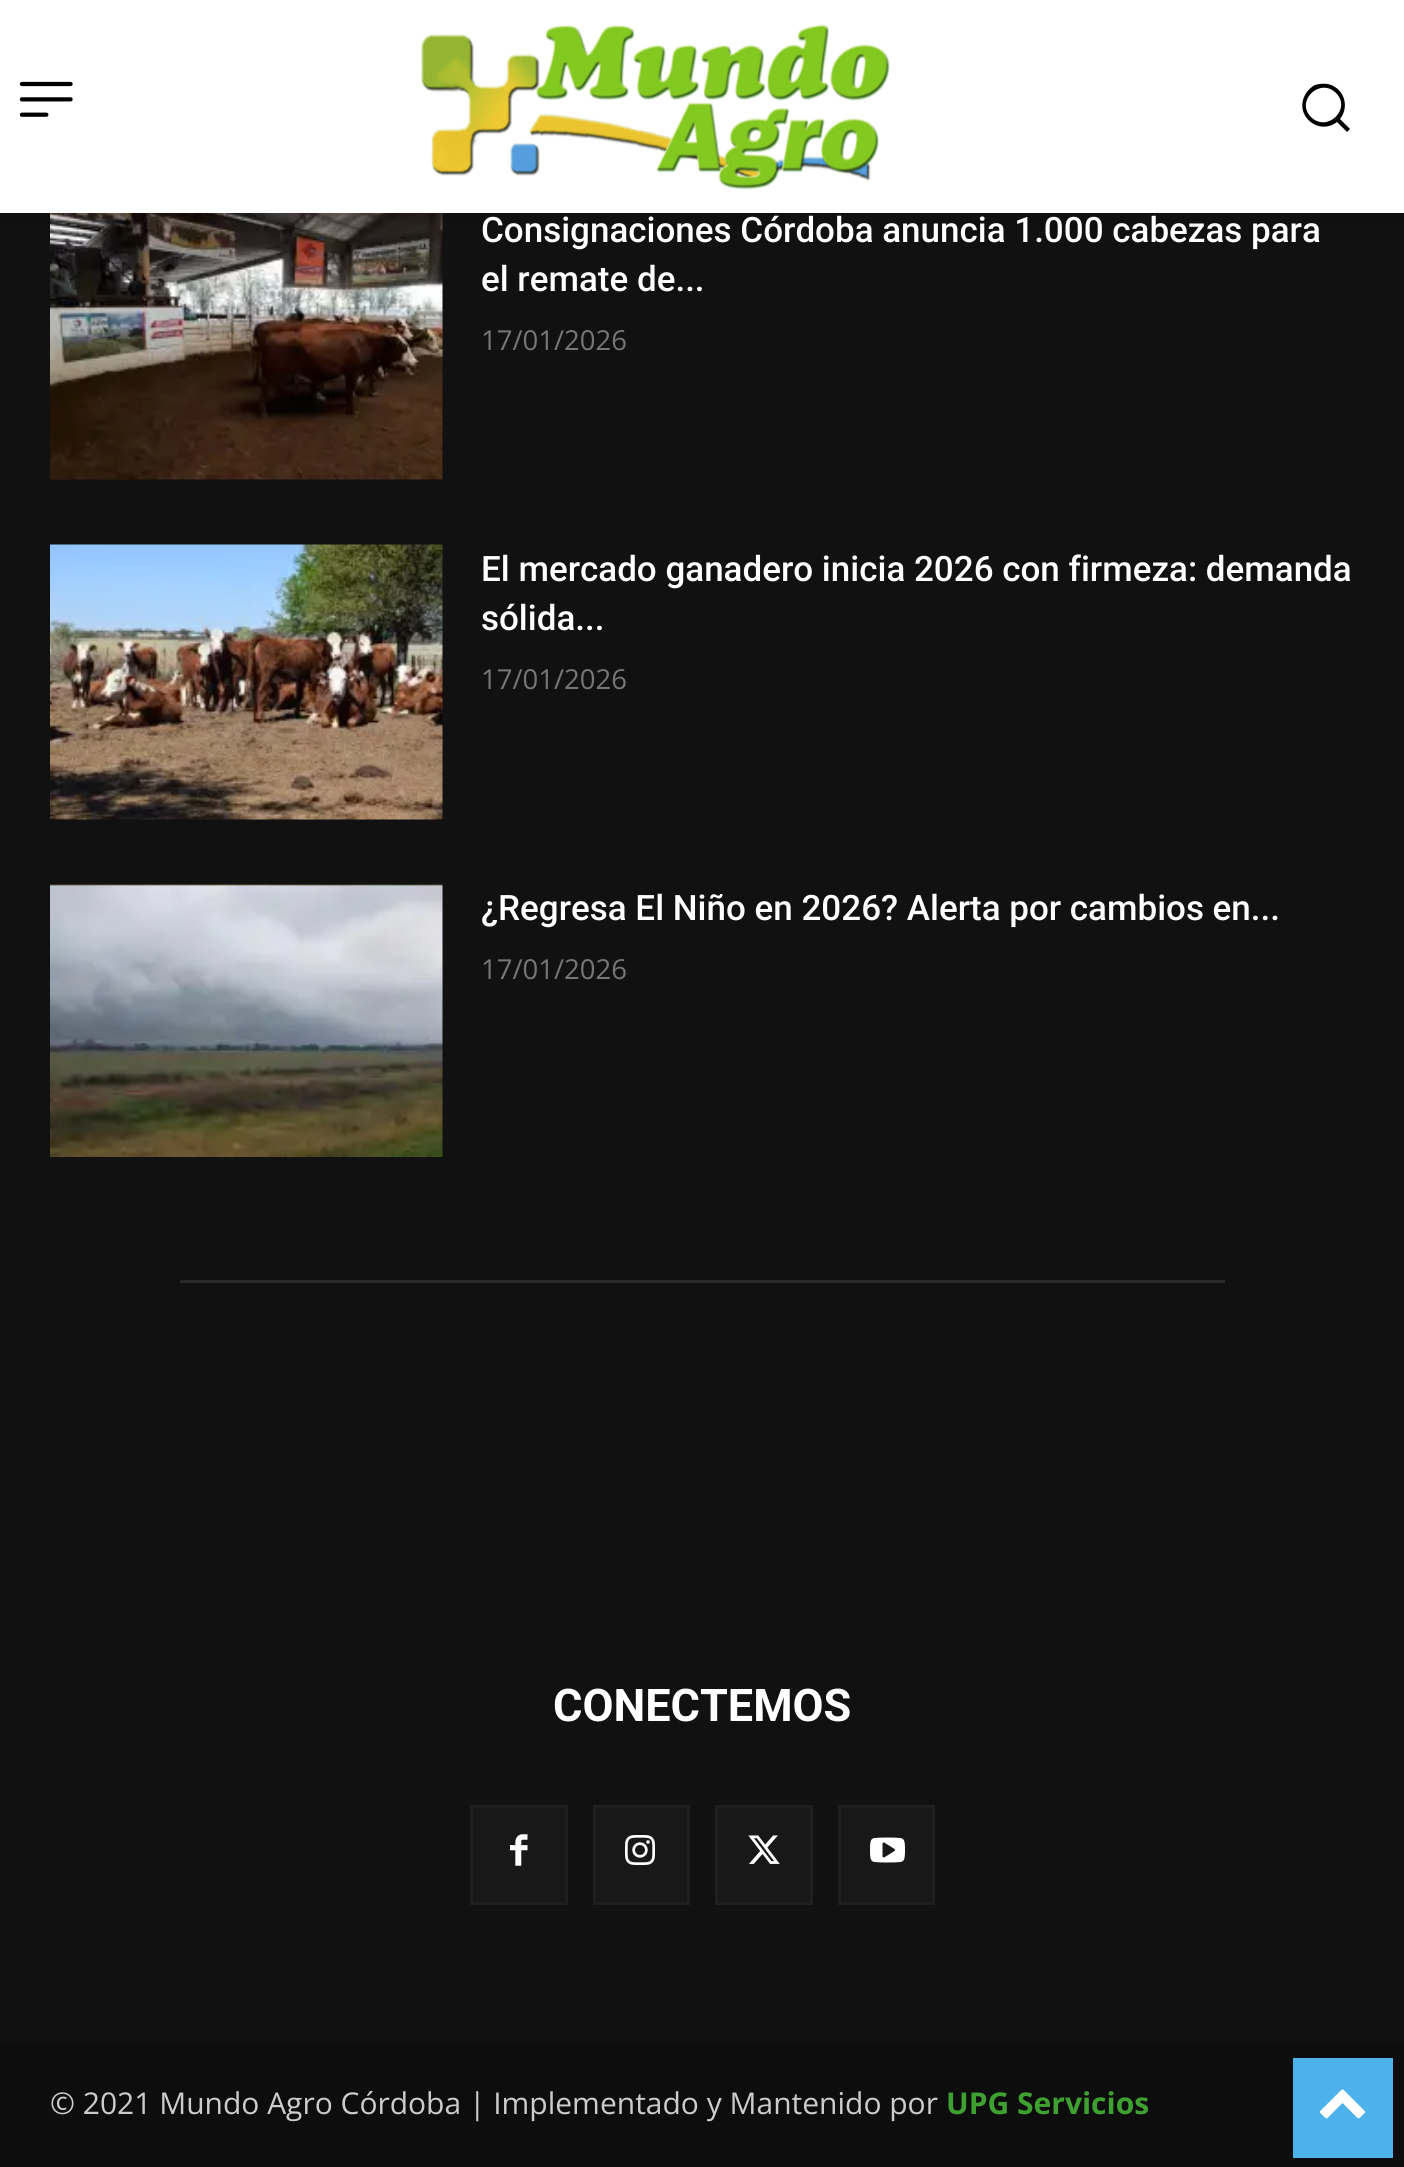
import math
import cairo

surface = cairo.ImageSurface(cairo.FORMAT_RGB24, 1404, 2167)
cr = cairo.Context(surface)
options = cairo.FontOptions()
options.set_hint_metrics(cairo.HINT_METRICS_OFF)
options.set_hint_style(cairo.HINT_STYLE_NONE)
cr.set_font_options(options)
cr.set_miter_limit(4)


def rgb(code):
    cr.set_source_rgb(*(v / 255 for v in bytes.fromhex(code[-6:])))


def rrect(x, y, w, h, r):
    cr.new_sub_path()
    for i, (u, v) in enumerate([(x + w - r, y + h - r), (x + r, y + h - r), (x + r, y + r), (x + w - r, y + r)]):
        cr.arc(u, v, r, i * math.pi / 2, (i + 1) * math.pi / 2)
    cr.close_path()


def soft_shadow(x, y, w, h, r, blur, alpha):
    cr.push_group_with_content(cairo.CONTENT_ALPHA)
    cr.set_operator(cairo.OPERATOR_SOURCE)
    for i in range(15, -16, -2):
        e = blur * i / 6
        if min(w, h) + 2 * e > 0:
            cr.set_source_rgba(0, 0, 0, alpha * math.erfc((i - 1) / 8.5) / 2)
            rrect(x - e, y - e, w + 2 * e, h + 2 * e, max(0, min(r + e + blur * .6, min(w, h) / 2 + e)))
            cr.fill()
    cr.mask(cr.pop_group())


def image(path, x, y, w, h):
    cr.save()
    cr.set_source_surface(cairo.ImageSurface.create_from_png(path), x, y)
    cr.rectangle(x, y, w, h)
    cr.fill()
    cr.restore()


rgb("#111111")
cr.paint()
rgb("#ffffff")
cr.rectangle(0, 0, 1404, 213)
cr.fill()
image("img/1.png", 19, 81, 54, 36)
image("img/2.png", 421, 24, 469, 166)
rgb("#000000")
cr.new_path()
cr.move_to(1350, 129)
cr.line_to(1340, 119)
cr.curve_to(1348, 109, 1346, 94, 1335, 87)
cr.curve_to(1329, 83, 1322, 83, 1315, 85)
cr.curve_to(1311, 87, 1307, 91, 1305, 95)
cr.curve_to(1294, 116, 1319, 136, 1337, 122)
cr.line_to(1347, 132)
cr.close_path()
cr.move_to(1311, 117)
cr.curve_to(1295, 101, 1320, 77, 1336, 93)
cr.curve_to(1352, 109, 1327, 133, 1311, 117)
cr.close_path()
cr.fill()
image("img/3.png", 50, 213, 393, 267)
cr.save()
cr.set_fill_rule(cairo.FILL_RULE_EVEN_ODD)
cr.new_path()
cr.move_to(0, 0)
cr.line_to(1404, 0)
cr.line_to(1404, 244)
cr.line_to(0, 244)
cr.close_path()
cr.move_to(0, 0)
cr.line_to(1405, 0)
cr.line_to(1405, 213)
cr.line_to(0, 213)
cr.close_path()
cr.clip()
rgb("#000000")
soft_shadow(0, 15, 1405, 213, 0, 5, 0.08)
cr.restore()
image("img/4.png", 50, 544, 393, 276)
image("img/5.png", 50, 884, 393, 273)
rgb("#292929")
cr.rectangle(180, 1280, 1045, 3)
cr.fill()
rgb("#181818")
cr.rectangle(471.5, 1806.5, 95, 97)
cr.fill_preserve()
rgb("#1f1f1f")
cr.set_line_width(3)
cr.stroke()
image("img/6.png", 510, 1834, 18, 32)
rgb("#181818")
cr.rectangle(594.5, 1806.5, 94, 97)
cr.fill_preserve()
rgb("#1f1f1f")
cr.stroke()
image("img/7.png", 625, 1835, 30, 30)
rgb("#181818")
cr.rectangle(716.5, 1806.5, 95, 97)
cr.fill_preserve()
rgb("#1f1f1f")
cr.stroke()
image("img/8.png", 748, 1835, 32, 29)
rgb("#181818")
cr.rectangle(839.5, 1806.5, 94, 97)
cr.fill_preserve()
rgb("#1f1f1f")
cr.stroke()
image("img/9.png", 870, 1837, 35, 26)
rgb("#0d0d0d")
cr.rectangle(0, 2043, 1404, 124)
cr.fill()
rgb("#4db2ec")
cr.rectangle(1293, 2058, 100, 100)
cr.fill()
image("img/10.png", 1320, 2089, 45, 30)
cr.select_font_face("Roboto Medium")
cr.set_font_size(35)
rgb("#ffffff")
cr.move_to(481, 242)
cr.show_text("Consignaciones Córdoba anuncia 1.000 cabezas para")
cr.move_to(481, 291)
cr.show_text("el remate de...")
cr.select_font_face("Open Sans")
cr.set_font_size(27.5)
rgb("#767676")
cr.move_to(481, 350)
cr.show_text("17/01/2026")
cr.select_font_face("Roboto Medium")
cr.set_font_size(35)
rgb("#ffffff")
cr.move_to(481, 581)
cr.show_text("El mercado ganadero inicia 2026 con firmeza: demanda")
cr.move_to(481, 630)
cr.show_text("sólida...")
cr.select_font_face("Open Sans")
cr.set_font_size(27.5)
rgb("#767676")
cr.move_to(481, 689)
cr.show_text("17/01/2026")
cr.select_font_face("Roboto Medium")
cr.set_font_size(35)
rgb("#ffffff")
cr.move_to(481, 920)
cr.show_text("¿Regresa El Niño en 2026? Alerta por cambios en...")
cr.select_font_face("Open Sans")
cr.set_font_size(27.5)
rgb("#767676")
cr.move_to(481, 979)
cr.show_text("17/01/2026")
cr.select_font_face("Roboto", cairo.FONT_SLANT_NORMAL, cairo.FONT_WEIGHT_BOLD)
cr.set_font_size(45)
rgb("#ffffff")
cr.move_to(553, 1721)
cr.show_text("CONECTEMOS")
cr.select_font_face("Open Sans")
cr.set_font_size(30)
rgb("#cccccc")
cr.move_to(50, 2114)
cr.show_text("© 2021 Mundo Agro Córdoba | Implementado y Mantenido por")
cr.select_font_face("Open Sans", cairo.FONT_SLANT_NORMAL, cairo.FONT_WEIGHT_BOLD)
rgb("#3ea031")
cr.move_to(946, 2114)
cr.show_text("UPG Servicios")
surface.write_to_png("page.png")
